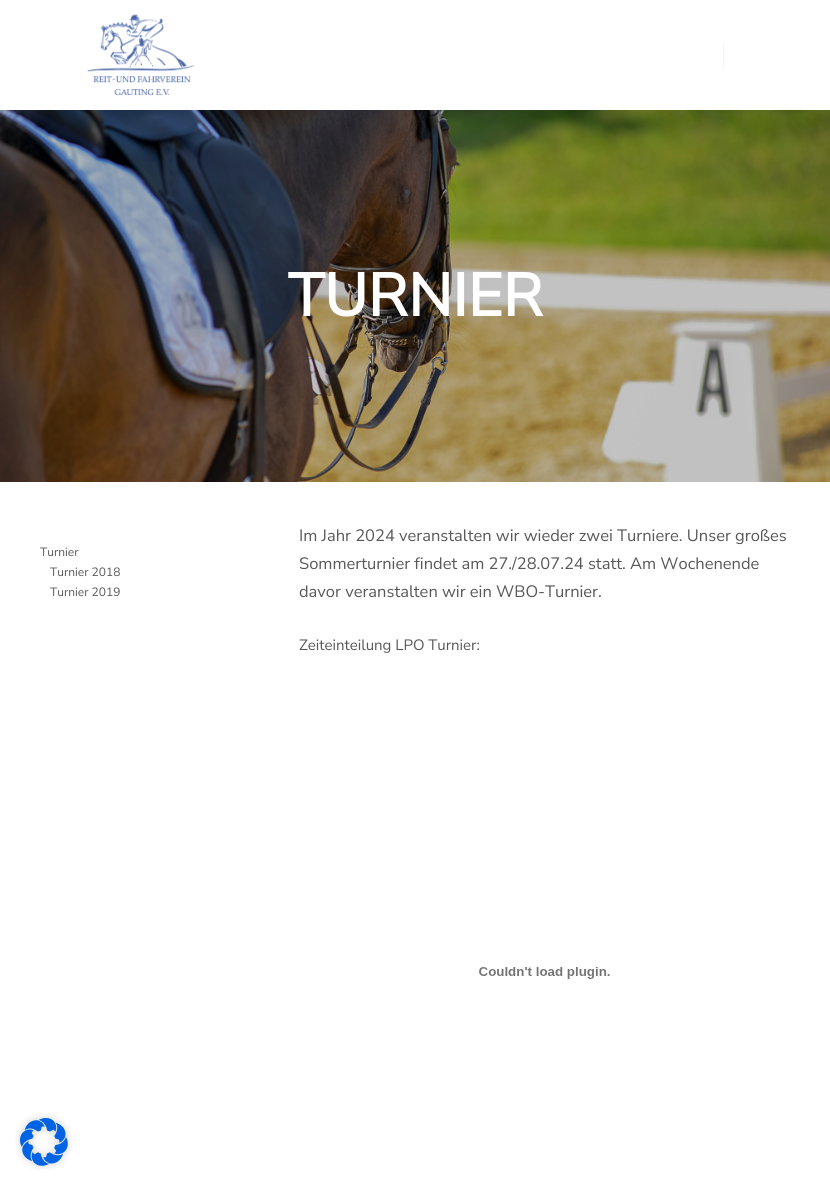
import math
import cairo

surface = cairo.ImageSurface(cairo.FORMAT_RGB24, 830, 1186)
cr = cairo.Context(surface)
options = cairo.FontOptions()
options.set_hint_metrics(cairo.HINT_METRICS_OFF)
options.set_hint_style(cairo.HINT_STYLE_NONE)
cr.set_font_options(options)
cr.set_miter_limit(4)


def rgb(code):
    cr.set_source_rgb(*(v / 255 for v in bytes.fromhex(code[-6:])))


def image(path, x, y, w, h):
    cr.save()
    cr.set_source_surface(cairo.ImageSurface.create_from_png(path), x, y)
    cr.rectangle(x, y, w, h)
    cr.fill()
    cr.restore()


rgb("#ffffff")
cr.paint()
image("img/1.png", 87, 14, 107, 81)
rgb("#f3f3f3")
cr.rectangle(723, 43, 1, 25)
cr.fill()
image("img/2.png", 0, 110, 830, 372)
image("img/3.png", 479, 967, 131, 12)
image("img/4.png", 15, 1113, 57, 57)
cr.select_font_face("Nunito Sans", cairo.FONT_SLANT_NORMAL, cairo.FONT_WEIGHT_BOLD)
cr.set_font_size(60)
rgb("#ffffff")
cr.move_to(288, 316)
cr.show_text("TURNIER")
cr.select_font_face("Nunito Sans ExtraLight")
cr.set_font_size(12)
rgb("#585858")
for x, y, s in [
    (40, 556, "Turnier"),
    (50, 576, "Turnier 2018"),
    (50, 596, "Turnier 2019"),
]:
    cr.move_to(x, y)
    cr.show_text(s)
cr.set_font_size(16.5)
for x, y, s in [
    (299, 541, "Im Jahr 2024 veranstalten wir wieder zwei Turniere. Unser großes"),
    (299, 569, "Sommerturnier findet am 27./28.07.24 statt. Am Wochenende"),
    (299, 597, "davor veranstalten wir ein WBO-Turnier."),
]:
    cr.move_to(x, y)
    cr.show_text(s)
cr.set_font_size(15)
cr.move_to(299, 650)
cr.show_text("Zeiteinteilung LPO Turnier:")
surface.write_to_png("page.png")
